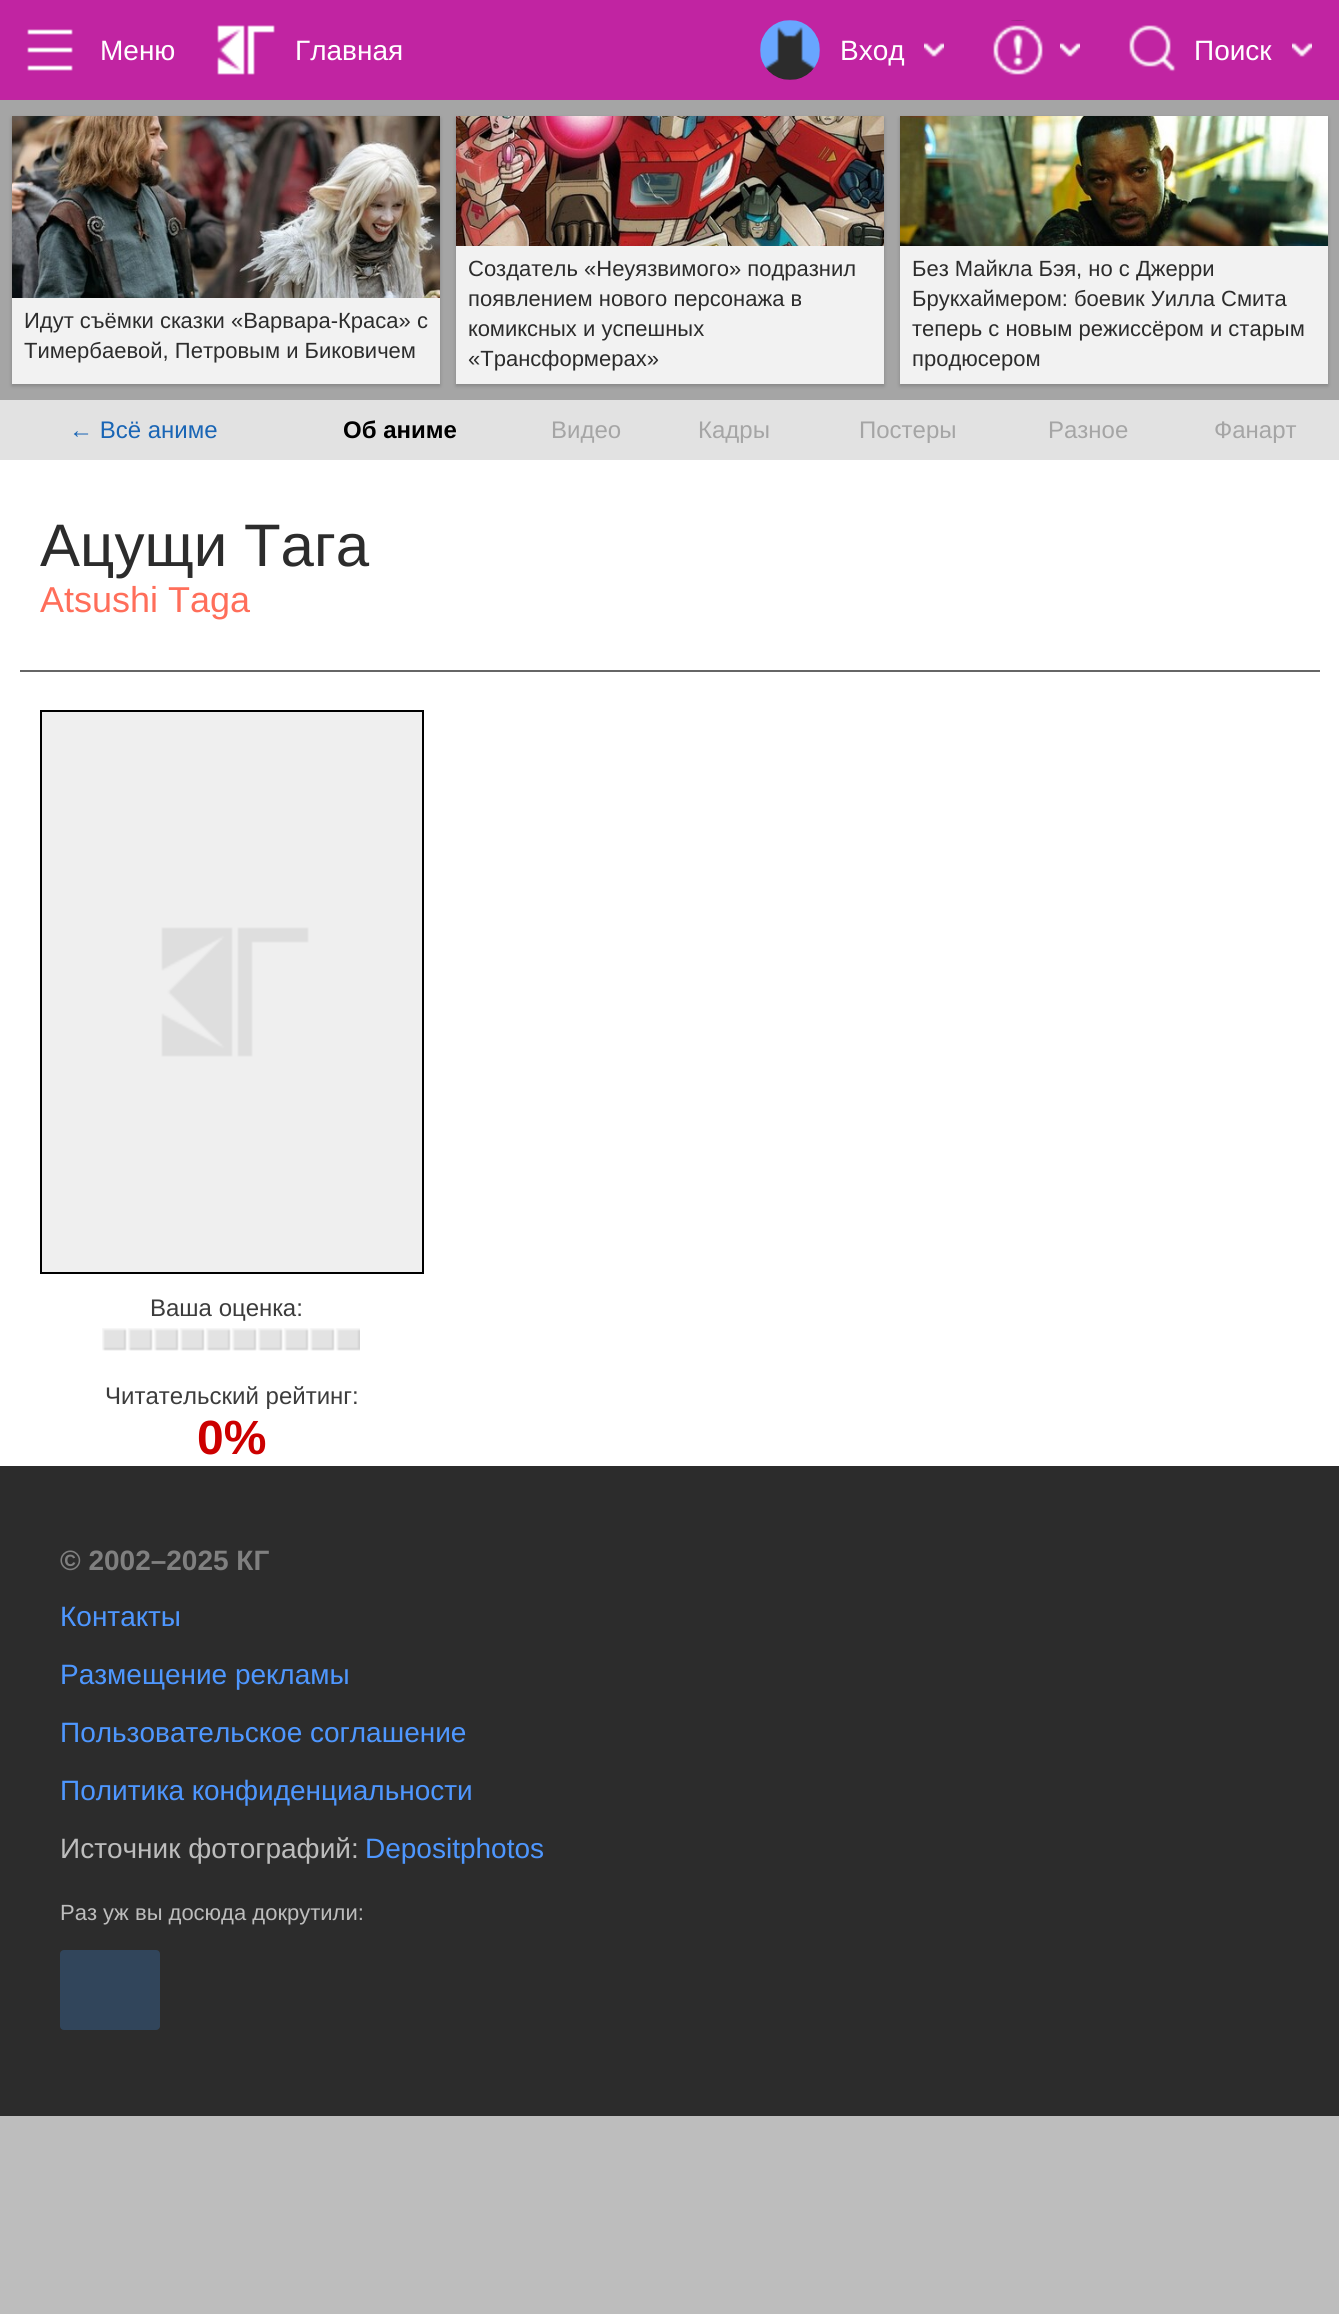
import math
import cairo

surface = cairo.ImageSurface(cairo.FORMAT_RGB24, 1339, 2314)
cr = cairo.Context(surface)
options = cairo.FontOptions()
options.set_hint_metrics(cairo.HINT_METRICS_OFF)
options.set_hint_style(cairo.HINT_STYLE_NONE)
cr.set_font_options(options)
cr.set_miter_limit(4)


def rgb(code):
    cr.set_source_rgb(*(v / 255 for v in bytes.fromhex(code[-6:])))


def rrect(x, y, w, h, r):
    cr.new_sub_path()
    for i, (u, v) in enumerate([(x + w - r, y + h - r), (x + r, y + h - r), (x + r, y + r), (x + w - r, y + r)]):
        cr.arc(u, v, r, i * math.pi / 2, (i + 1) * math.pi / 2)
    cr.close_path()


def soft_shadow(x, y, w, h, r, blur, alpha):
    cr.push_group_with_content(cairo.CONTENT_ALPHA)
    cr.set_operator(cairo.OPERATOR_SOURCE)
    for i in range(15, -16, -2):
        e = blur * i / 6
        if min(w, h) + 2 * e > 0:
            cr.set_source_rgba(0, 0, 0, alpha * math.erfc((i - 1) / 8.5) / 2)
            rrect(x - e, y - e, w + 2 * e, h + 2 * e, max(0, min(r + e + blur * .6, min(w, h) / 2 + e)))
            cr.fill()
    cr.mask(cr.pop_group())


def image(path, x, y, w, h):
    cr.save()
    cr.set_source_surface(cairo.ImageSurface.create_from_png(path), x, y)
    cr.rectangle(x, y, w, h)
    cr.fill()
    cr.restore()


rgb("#bdbdbd")
cr.paint()
rgb("#c124a2")
cr.rectangle(0, 0, 1339, 100)
cr.fill()
image("img/1.png", 27, 29, 46, 42)
image("img/2.png", 217, 25, 58, 50)
image("img/3.png", 760, 20, 60, 60)
image("img/4.png", 924, 42, 20, 15)
image("img/5.png", 993, 20, 50, 55)
image("img/4.png", 1060, 42, 20, 15)
image("img/6.png", 1129, 25, 47, 47)
image("img/4.png", 1292, 42, 20, 15)
rgb("#a5a5a5")
cr.rectangle(0, 100, 1339, 300)
cr.fill()
rgb("#000000")
soft_shadow(12, 118, 428, 268, 0, 2, 0.2)
image("img/7.png", 12, 116, 428, 182)
rgb("#f2f2f2")
cr.rectangle(12, 298, 428, 86)
cr.fill()
rgb("#000000")
soft_shadow(456, 118, 428, 268, 0, 2, 0.2)
image("img/8.png", 456, 116, 428, 130)
rgb("#f2f2f2")
cr.rectangle(456, 246, 428, 138)
cr.fill()
rgb("#000000")
soft_shadow(900, 118, 428, 268, 0, 2, 0.2)
image("img/9.png", 900, 116, 428, 130)
for x, y, w, h, color in [
    (900, 246, 428, 138, "#f2f2f2"),
    (0, 460, 1339, 1006, "#ffffff"),
    (0, 400, 1339, 60, "#e2e2e2"),
    (20, 670, 1300, 2, "#666666"),
]:
    rgb(color)
    cr.rectangle(x, y, w, h)
    cr.fill()
cr.rectangle(41, 711, 382, 562)
rgb("#000000")
cr.stroke()
image("img/10.png", 42, 712, 380, 560)
image("img/11.png", 102, 1328, 258, 23)
rgb("#2c2c2c")
cr.rectangle(0, 1466, 1339, 650)
cr.fill()
rgb("#31455b")
rrect(60, 1950, 100, 80, 4)
cr.fill()
cr.select_font_face("Liberation Sans")
cr.set_font_size(28)
rgb("#ffffff")
for x, y, s in [
    (100, 60, "Меню"),
    (295, 60, "Главная"),
    (840, 60, "Вход"),
    (1194, 60, "Поиск"),
]:
    cr.move_to(x, y)
    cr.show_text(s)
cr.set_font_size(22)
rgb("#2c2c2c")
for x, y, s in [
    (24, 328, "Идут съёмки сказки «Варвара-Краса» с"),
    (24, 358, "Тимербаевой, Петровым и Биковичем"),
    (468, 276, "Создатель «Неуязвимого» подразнил"),
    (468, 306, "появлением нового персонажа в"),
    (468, 336, "комиксных и успешных"),
    (468, 366, "«Трансформерах»"),
    (912, 276, "Без Майкла Бэя, но с Джерри"),
    (912, 306, "Брукхаймером: боевик Уилла Смита"),
    (912, 336, "теперь с новым режиссёром и старым"),
    (912, 366, "продюсером"),
]:
    cr.move_to(x, y)
    cr.show_text(s)
cr.set_font_size(24)
rgb("#1965b5")
cr.move_to(69, 438)
cr.show_text("← Всё аниме")
cr.select_font_face("Liberation Sans", cairo.FONT_SLANT_NORMAL, cairo.FONT_WEIGHT_BOLD)
rgb("#000000")
cr.move_to(343, 438)
cr.show_text("Об аниме")
cr.select_font_face("Liberation Sans")
rgb("#a5a5a5")
for x, y, s in [
    (551, 438, "Видео"),
    (698, 438, "Кадры"),
    (859, 438, "Постеры"),
    (1048, 438, "Разное"),
    (1214, 438, "Фанарт"),
]:
    cr.move_to(x, y)
    cr.show_text(s)
cr.set_font_size(60)
rgb("#2c2c2c")
cr.move_to(40, 566)
cr.show_text("Ацущи Тага")
cr.set_font_size(36)
rgb("#ff6e5a")
cr.move_to(40, 612)
cr.show_text("Atsushi Taga")
cr.set_font_size(24)
rgb("#3c3c3c")
cr.move_to(150, 1316)
cr.show_text("Ваша оценка:")
cr.move_to(105, 1404)
cr.show_text("Читательский рейтинг:")
cr.select_font_face("Liberation Sans", cairo.FONT_SLANT_NORMAL, cairo.FONT_WEIGHT_BOLD)
cr.set_font_size(48)
rgb("#cc0000")
cr.move_to(197, 1454)
cr.show_text("0%")
cr.set_font_size(28)
rgb("#808080")
cr.move_to(60, 1570)
cr.show_text("© 2002–2025 КГ")
cr.select_font_face("Liberation Sans")
rgb("#4e97ff")
for x, y, s in [
    (60, 1626, "Контакты"),
    (60, 1684, "Размещение рекламы"),
    (60, 1742, "Пользовательское соглашение"),
    (60, 1800, "Политика конфиденциальности"),
]:
    cr.move_to(x, y)
    cr.show_text(s)
rgb("#bdbdbd")
cr.move_to(60, 1858)
cr.show_text("Источник фотографий:")
rgb("#4e97ff")
cr.move_to(365, 1858)
cr.show_text("Depositphotos")
cr.set_font_size(22)
rgb("#bdbdbd")
cr.move_to(60, 1920)
cr.show_text("Раз уж вы досюда докрутили:")
surface.write_to_png("page.png")
